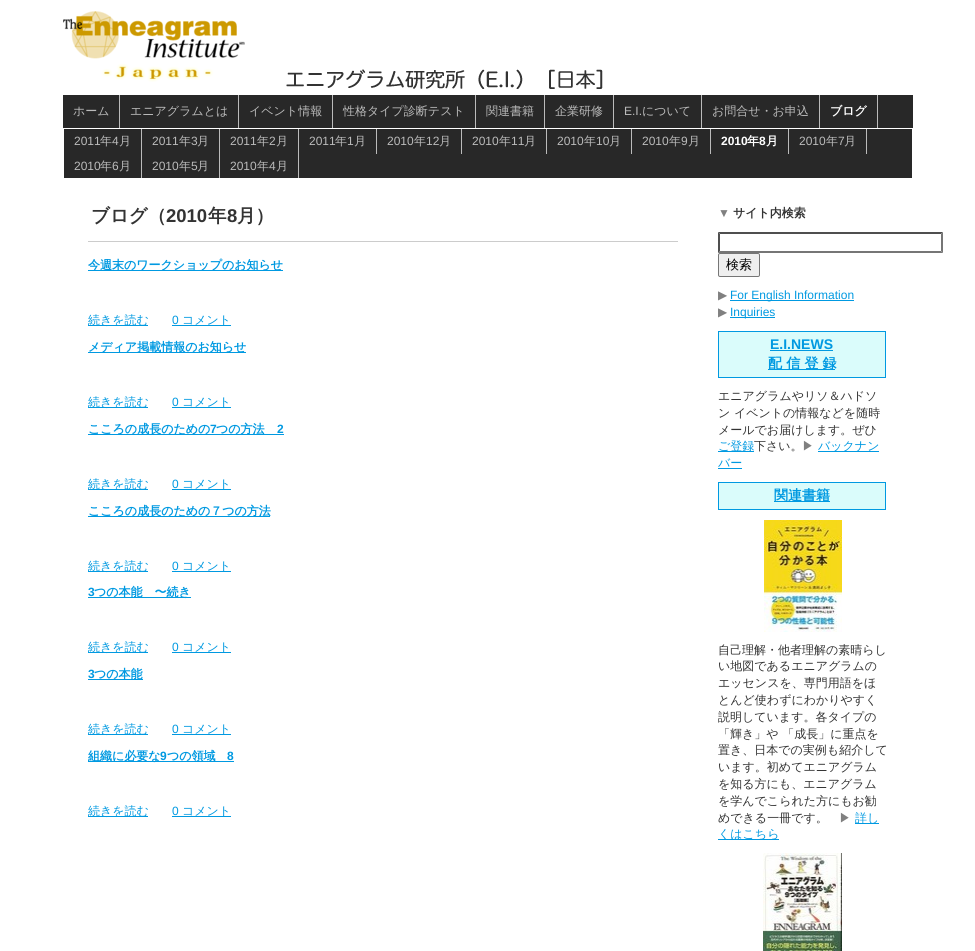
import math
import cairo

surface = cairo.ImageSurface(cairo.FORMAT_RGB24, 975, 951)
cr = cairo.Context(surface)
options = cairo.FontOptions()
options.set_hint_metrics(cairo.HINT_METRICS_OFF)
options.set_hint_style(cairo.HINT_STYLE_NONE)
cr.set_font_options(options)
cr.set_miter_limit(4)


def rgb(code):
    cr.set_source_rgb(*(v / 255 for v in bytes.fromhex(code[-6:])))


def rrect(x, y, w, h, r):
    cr.new_sub_path()
    for i, (u, v) in enumerate([(x + w - r, y + h - r), (x + r, y + h - r), (x + r, y + r), (x + w - r, y + r)]):
        cr.arc(u, v, r, i * math.pi / 2, (i + 1) * math.pi / 2)
    cr.close_path()


def image(path, x, y, w, h):
    cr.save()
    cr.set_source_surface(cairo.ImageSurface.create_from_png(path), x, y)
    cr.rectangle(x, y, w, h)
    cr.fill()
    cr.restore()


rgb("#ffffff")
cr.paint()
image("img/1.png", 63, 11, 182, 71)
image("img/2.png", 286, 69, 317, 20)
for x, y, w, h, color in [
    (63, 95, 850, 33, "#282828"),
    (119, 95, 1, 33, "#bbbbbb"),
    (238, 95, 1, 33, "#bbbbbb"),
    (332, 95, 1, 33, "#bbbbbb"),
    (475, 95, 1, 33, "#bbbbbb"),
    (544, 95, 1, 33, "#bbbbbb"),
    (613, 95, 1, 33, "#bbbbbb"),
    (701, 95, 1, 33, "#bbbbbb"),
    (819, 95, 1, 33, "#bbbbbb"),
    (877, 95, 1, 33, "#bbbbbb"),
    (64, 129, 848, 49, "#282828"),
    (141, 129, 1, 49, "#bbbbbb"),
    (219, 129, 1, 49, "#bbbbbb"),
    (298, 129, 1, 49, "#bbbbbb"),
    (376, 129, 1, 25, "#bbbbbb"),
    (461, 129, 1, 25, "#bbbbbb"),
    (546, 129, 1, 25, "#bbbbbb"),
    (631, 129, 1, 25, "#bbbbbb"),
    (710, 129, 1, 25, "#bbbbbb"),
    (788, 129, 1, 25, "#bbbbbb"),
    (866, 129, 1, 25, "#bbbbbb"),
    (88, 241, 590, 1, "#cccccc"),
    (88, 270, 195, 1, "#0099e1"),
    (88, 325, 60, 1, "#0099e1"),
    (172, 325, 59, 1, "#0099e1"),
    (88, 352, 158, 1, "#0099e1"),
    (88, 407, 60, 1, "#0099e1"),
    (172, 407, 59, 1, "#0099e1"),
    (88, 434, 196, 1, "#0099e1"),
    (88, 489, 60, 1, "#0099e1"),
    (172, 489, 59, 1, "#0099e1"),
    (88, 516, 182, 1, "#0099e1"),
    (88, 571, 60, 1, "#0099e1"),
    (172, 571, 59, 1, "#0099e1"),
    (88, 597, 103, 1, "#0099e1"),
    (88, 652, 60, 1, "#0099e1"),
    (172, 652, 59, 1, "#0099e1"),
    (88, 679, 55, 1, "#0099e1"),
    (88, 734, 60, 1, "#0099e1"),
    (172, 734, 59, 1, "#0099e1"),
    (88, 761, 146, 1, "#0099e1"),
    (88, 816, 60, 1, "#0099e1"),
    (172, 816, 59, 1, "#0099e1"),
]:
    rgb(color)
    cr.rectangle(x, y, w, h)
    cr.fill()
rgb("#4f4f4f")
cr.new_path()
cr.move_to(718, 232)
cr.line_to(943, 232)
cr.line_to(941, 234)
cr.line_to(720, 234)
cr.close_path()
cr.fill()
rgb("#767676")
cr.new_path()
cr.move_to(943, 232)
cr.line_to(943, 253)
cr.line_to(941, 251)
cr.line_to(941, 234)
cr.close_path()
cr.fill()
cr.new_path()
cr.move_to(943, 253)
cr.line_to(718, 253)
cr.line_to(720, 251)
cr.line_to(941, 251)
cr.close_path()
cr.fill()
rgb("#4f4f4f")
cr.new_path()
cr.move_to(718, 253)
cr.line_to(718, 232)
cr.line_to(720, 234)
cr.line_to(720, 251)
cr.close_path()
cr.fill()
rgb("#efefef")
rrect(718.5, 253.5, 41, 23, 1.5)
cr.fill_preserve()
rgb("#767676")
cr.set_line_width(1)
cr.stroke()
rgb("#0099e1")
cr.rectangle(730, 300, 124, 1)
cr.fill()
cr.rectangle(730, 317, 45, 1)
cr.fill()
rgb("#dafcfb")
cr.rectangle(718.5, 331.5, 167, 46)
cr.fill_preserve()
rgb("#0099e1")
cr.stroke()
for x, y, w, h, color in [
    (770, 350, 63, 1, "#0099e1"),
    (768, 369, 67, 1, "#0099e1"),
    (718, 451, 36, 1, "#0099e1"),
    (818, 451, 61, 1, "#0099e1"),
    (718, 468, 24, 1, "#0099e1"),
]:
    rgb(color)
    cr.rectangle(x, y, w, h)
    cr.fill()
rgb("#dafcfb")
cr.rectangle(718.5, 482.5, 167, 27)
cr.fill_preserve()
rgb("#0099e1")
cr.stroke()
cr.rectangle(774, 501, 56, 1)
cr.fill()
image("img/3.png", 764, 520, 78, 112)
cr.rectangle(855, 823, 24, 1)
cr.fill()
cr.rectangle(718, 839, 61, 1)
cr.fill()
image("img/4.png", 763, 853, 79, 98)
cr.select_font_face("WenQuanYi Zen Hei Medium")
cr.set_font_size(12)
rgb("#bbbbbb")
for x, y, s in [
    (73, 115, "ホーム"),
    (130, 115, "エニアグラムとは"),
    (249, 115, "イベント情報"),
    (343, 115, "性格タイプ診断テスト"),
    (486, 115, "関連書籍"),
    (555, 115, "企業研修"),
]:
    cr.move_to(x, y)
    cr.show_text(s)
cr.select_font_face("Liberation Sans")
cr.move_to(624, 115)
cr.show_text("E.I.")
cr.select_font_face("WenQuanYi Zen Hei Medium")
cr.move_to(642, 115)
cr.show_text("について")
cr.move_to(712, 115)
cr.show_text("お問合せ・お申込")
cr.select_font_face("WenQuanYi Zen Hei", cairo.FONT_SLANT_NORMAL, cairo.FONT_WEIGHT_BOLD)
rgb("#ffffff")
cr.move_to(830, 115)
cr.show_text("ブログ")
cr.select_font_face("Liberation Sans")
rgb("#bbbbbb")
cr.move_to(74, 145)
cr.show_text("2011")
cr.select_font_face("WenQuanYi Zen Hei Medium")
cr.move_to(100, 145)
cr.show_text("年")
cr.select_font_face("Liberation Sans")
cr.move_to(112, 145)
cr.show_text("4")
cr.select_font_face("WenQuanYi Zen Hei Medium")
cr.move_to(119, 145)
cr.show_text("月")
cr.select_font_face("Liberation Sans")
cr.move_to(152, 145)
cr.show_text("2011")
cr.select_font_face("WenQuanYi Zen Hei Medium")
cr.move_to(179, 145)
cr.show_text("年")
cr.select_font_face("Liberation Sans")
cr.move_to(191, 145)
cr.show_text("3")
cr.select_font_face("WenQuanYi Zen Hei Medium")
cr.move_to(197, 145)
cr.show_text("月")
cr.select_font_face("Liberation Sans")
cr.move_to(230, 145)
cr.show_text("2011")
cr.select_font_face("WenQuanYi Zen Hei Medium")
cr.move_to(257, 145)
cr.show_text("年")
cr.select_font_face("Liberation Sans")
cr.move_to(269, 145)
cr.show_text("2")
cr.select_font_face("WenQuanYi Zen Hei Medium")
cr.move_to(276, 145)
cr.show_text("月")
cr.select_font_face("Liberation Sans")
cr.move_to(309, 145)
cr.show_text("2011")
cr.select_font_face("WenQuanYi Zen Hei Medium")
cr.move_to(335, 145)
cr.show_text("年")
cr.select_font_face("Liberation Sans")
cr.move_to(347, 145)
cr.show_text("1")
cr.select_font_face("WenQuanYi Zen Hei Medium")
cr.move_to(354, 145)
cr.show_text("月")
cr.select_font_face("Liberation Sans")
cr.move_to(387, 145)
cr.show_text("2010")
cr.select_font_face("WenQuanYi Zen Hei Medium")
cr.move_to(414, 145)
cr.show_text("年")
cr.select_font_face("Liberation Sans")
cr.move_to(426, 145)
cr.show_text("12")
cr.select_font_face("WenQuanYi Zen Hei Medium")
cr.move_to(439, 145)
cr.show_text("月")
cr.select_font_face("Liberation Sans")
cr.move_to(472, 145)
cr.show_text("2010")
cr.select_font_face("WenQuanYi Zen Hei Medium")
cr.move_to(499, 145)
cr.show_text("年")
cr.select_font_face("Liberation Sans")
cr.move_to(511, 145)
cr.show_text("11")
cr.select_font_face("WenQuanYi Zen Hei Medium")
cr.move_to(524, 145)
cr.show_text("月")
cr.select_font_face("Liberation Sans")
cr.move_to(557, 145)
cr.show_text("2010")
cr.select_font_face("WenQuanYi Zen Hei Medium")
cr.move_to(584, 145)
cr.show_text("年")
cr.select_font_face("Liberation Sans")
cr.move_to(596, 145)
cr.show_text("10")
cr.select_font_face("WenQuanYi Zen Hei Medium")
cr.move_to(609, 145)
cr.show_text("月")
cr.select_font_face("Liberation Sans")
cr.move_to(642, 145)
cr.show_text("2010")
cr.select_font_face("WenQuanYi Zen Hei Medium")
cr.move_to(669, 145)
cr.show_text("年")
cr.select_font_face("Liberation Sans")
cr.move_to(681, 145)
cr.show_text("9")
cr.select_font_face("WenQuanYi Zen Hei Medium")
cr.move_to(688, 145)
cr.show_text("月")
cr.select_font_face("Liberation Sans", cairo.FONT_SLANT_NORMAL, cairo.FONT_WEIGHT_BOLD)
rgb("#ffffff")
cr.move_to(721, 145)
cr.show_text("2010")
cr.select_font_face("WenQuanYi Zen Hei", cairo.FONT_SLANT_NORMAL, cairo.FONT_WEIGHT_BOLD)
cr.move_to(747, 145)
cr.show_text("年")
cr.select_font_face("Liberation Sans", cairo.FONT_SLANT_NORMAL, cairo.FONT_WEIGHT_BOLD)
cr.move_to(759, 145)
cr.show_text("8")
cr.select_font_face("WenQuanYi Zen Hei", cairo.FONT_SLANT_NORMAL, cairo.FONT_WEIGHT_BOLD)
cr.move_to(766, 145)
cr.show_text("月")
cr.select_font_face("Liberation Sans")
rgb("#bbbbbb")
cr.move_to(799, 145)
cr.show_text("2010")
cr.select_font_face("WenQuanYi Zen Hei Medium")
cr.move_to(826, 145)
cr.show_text("年")
cr.select_font_face("Liberation Sans")
cr.move_to(838, 145)
cr.show_text("7")
cr.select_font_face("WenQuanYi Zen Hei Medium")
cr.move_to(844, 145)
cr.show_text("月")
cr.select_font_face("Liberation Sans")
cr.move_to(74, 170)
cr.show_text("2010")
cr.select_font_face("WenQuanYi Zen Hei Medium")
cr.move_to(100, 170)
cr.show_text("年")
cr.select_font_face("Liberation Sans")
cr.move_to(112, 170)
cr.show_text("6")
cr.select_font_face("WenQuanYi Zen Hei Medium")
cr.move_to(119, 170)
cr.show_text("月")
cr.select_font_face("Liberation Sans")
cr.move_to(152, 170)
cr.show_text("2010")
cr.select_font_face("WenQuanYi Zen Hei Medium")
cr.move_to(179, 170)
cr.show_text("年")
cr.select_font_face("Liberation Sans")
cr.move_to(191, 170)
cr.show_text("5")
cr.select_font_face("WenQuanYi Zen Hei Medium")
cr.move_to(197, 170)
cr.show_text("月")
cr.select_font_face("Liberation Sans")
cr.move_to(230, 170)
cr.show_text("2010")
cr.select_font_face("WenQuanYi Zen Hei Medium")
cr.move_to(257, 170)
cr.show_text("年")
cr.select_font_face("Liberation Sans")
cr.move_to(269, 170)
cr.show_text("4")
cr.select_font_face("WenQuanYi Zen Hei Medium")
cr.move_to(276, 170)
cr.show_text("月")
cr.select_font_face("WenQuanYi Zen Hei", cairo.FONT_SLANT_NORMAL, cairo.FONT_WEIGHT_BOLD)
cr.set_font_size(18.5)
rgb("#333333")
cr.move_to(91, 222)
cr.show_text("ブログ（")
cr.select_font_face("Liberation Sans", cairo.FONT_SLANT_NORMAL, cairo.FONT_WEIGHT_BOLD)
cr.move_to(166, 222)
cr.show_text("2010")
cr.select_font_face("WenQuanYi Zen Hei", cairo.FONT_SLANT_NORMAL, cairo.FONT_WEIGHT_BOLD)
cr.move_to(208, 222)
cr.show_text("年")
cr.select_font_face("Liberation Sans", cairo.FONT_SLANT_NORMAL, cairo.FONT_WEIGHT_BOLD)
cr.move_to(227, 222)
cr.show_text("8")
cr.select_font_face("WenQuanYi Zen Hei", cairo.FONT_SLANT_NORMAL, cairo.FONT_WEIGHT_BOLD)
cr.move_to(237, 222)
cr.show_text("月）")
cr.set_font_size(12)
rgb("#0099e1")
cr.move_to(88, 269)
cr.show_text("今週末のワークショップのお知らせ")
cr.save()
cr.rectangle(88, 252, 590, 82)
cr.clip()
cr.select_font_face("WenQuanYi Zen Hei Medium")
cr.move_to(88, 324)
cr.show_text("続きを読む")
cr.restore()
cr.select_font_face("Liberation Sans")
cr.move_to(172, 324)
cr.show_text("0")
cr.select_font_face("WenQuanYi Zen Hei Medium")
cr.move_to(182, 324)
cr.show_text("コメント")
cr.select_font_face("WenQuanYi Zen Hei", cairo.FONT_SLANT_NORMAL, cairo.FONT_WEIGHT_BOLD)
cr.move_to(88, 351)
cr.show_text("メディア掲載情報のお知らせ")
cr.save()
cr.rectangle(88, 334, 590, 82)
cr.clip()
cr.select_font_face("WenQuanYi Zen Hei Medium")
cr.move_to(88, 406)
cr.show_text("続きを読む")
cr.restore()
cr.select_font_face("Liberation Sans")
cr.move_to(172, 406)
cr.show_text("0")
cr.select_font_face("WenQuanYi Zen Hei Medium")
cr.move_to(182, 406)
cr.show_text("コメント")
cr.select_font_face("WenQuanYi Zen Hei", cairo.FONT_SLANT_NORMAL, cairo.FONT_WEIGHT_BOLD)
cr.move_to(88, 433)
cr.show_text("こころの成長のための")
cr.select_font_face("Liberation Sans", cairo.FONT_SLANT_NORMAL, cairo.FONT_WEIGHT_BOLD)
cr.move_to(210, 433)
cr.show_text("7")
cr.select_font_face("WenQuanYi Zen Hei", cairo.FONT_SLANT_NORMAL, cairo.FONT_WEIGHT_BOLD)
cr.move_to(216, 433)
cr.show_text("つの方法")
cr.select_font_face("Liberation Sans", cairo.FONT_SLANT_NORMAL, cairo.FONT_WEIGHT_BOLD)
cr.move_to(277, 433)
cr.show_text("2")
cr.save()
cr.rectangle(88, 416, 590, 82)
cr.clip()
cr.select_font_face("WenQuanYi Zen Hei Medium")
cr.move_to(88, 488)
cr.show_text("続きを読む")
cr.restore()
cr.select_font_face("Liberation Sans")
cr.move_to(172, 488)
cr.show_text("0")
cr.select_font_face("WenQuanYi Zen Hei Medium")
cr.move_to(182, 488)
cr.show_text("コメント")
cr.select_font_face("WenQuanYi Zen Hei", cairo.FONT_SLANT_NORMAL, cairo.FONT_WEIGHT_BOLD)
cr.move_to(88, 515)
cr.show_text("こころの成長のための７つの方法")
cr.save()
cr.rectangle(88, 498, 590, 81)
cr.clip()
cr.select_font_face("WenQuanYi Zen Hei Medium")
cr.move_to(88, 570)
cr.show_text("続きを読む")
cr.restore()
cr.select_font_face("Liberation Sans")
cr.move_to(172, 570)
cr.show_text("0")
cr.select_font_face("WenQuanYi Zen Hei Medium")
cr.move_to(182, 570)
cr.show_text("コメント")
cr.select_font_face("Liberation Sans", cairo.FONT_SLANT_NORMAL, cairo.FONT_WEIGHT_BOLD)
cr.move_to(88, 596)
cr.show_text("3")
cr.select_font_face("WenQuanYi Zen Hei", cairo.FONT_SLANT_NORMAL, cairo.FONT_WEIGHT_BOLD)
cr.move_to(94, 596)
cr.show_text("つの本能　〜続き")
cr.save()
cr.rectangle(88, 579, 590, 82)
cr.clip()
cr.select_font_face("WenQuanYi Zen Hei Medium")
cr.move_to(88, 651)
cr.show_text("続きを読む")
cr.restore()
cr.select_font_face("Liberation Sans")
cr.move_to(172, 651)
cr.show_text("0")
cr.select_font_face("WenQuanYi Zen Hei Medium")
cr.move_to(182, 651)
cr.show_text("コメント")
cr.select_font_face("Liberation Sans", cairo.FONT_SLANT_NORMAL, cairo.FONT_WEIGHT_BOLD)
cr.move_to(88, 678)
cr.show_text("3")
cr.select_font_face("WenQuanYi Zen Hei", cairo.FONT_SLANT_NORMAL, cairo.FONT_WEIGHT_BOLD)
cr.move_to(94, 678)
cr.show_text("つの本能")
cr.save()
cr.rectangle(88, 661, 590, 82)
cr.clip()
cr.select_font_face("WenQuanYi Zen Hei Medium")
cr.move_to(88, 733)
cr.show_text("続きを読む")
cr.restore()
cr.select_font_face("Liberation Sans")
cr.move_to(172, 733)
cr.show_text("0")
cr.select_font_face("WenQuanYi Zen Hei Medium")
cr.move_to(182, 733)
cr.show_text("コメント")
cr.save()
cr.rectangle(88, 743, 590, 82)
cr.clip()
cr.select_font_face("WenQuanYi Zen Hei", cairo.FONT_SLANT_NORMAL, cairo.FONT_WEIGHT_BOLD)
cr.move_to(88, 760)
cr.show_text("組織に必要な")
cr.restore()
cr.select_font_face("Liberation Sans", cairo.FONT_SLANT_NORMAL, cairo.FONT_WEIGHT_BOLD)
cr.move_to(160, 760)
cr.show_text("9")
cr.select_font_face("WenQuanYi Zen Hei", cairo.FONT_SLANT_NORMAL, cairo.FONT_WEIGHT_BOLD)
cr.move_to(167, 760)
cr.show_text("つの領域")
cr.select_font_face("Liberation Sans", cairo.FONT_SLANT_NORMAL, cairo.FONT_WEIGHT_BOLD)
cr.move_to(227, 760)
cr.show_text("8")
cr.save()
cr.rectangle(88, 743, 590, 82)
cr.clip()
cr.select_font_face("WenQuanYi Zen Hei Medium")
cr.move_to(88, 815)
cr.show_text("続きを読む")
cr.restore()
cr.select_font_face("Liberation Sans")
cr.move_to(172, 815)
cr.show_text("0")
cr.select_font_face("WenQuanYi Zen Hei Medium")
cr.move_to(182, 815)
cr.show_text("コメント")
cr.select_font_face("Liberation Sans", cairo.FONT_SLANT_NORMAL, cairo.FONT_WEIGHT_BOLD)
rgb("#808080")
cr.move_to(718, 217)
cr.show_text("▼")
cr.select_font_face("WenQuanYi Zen Hei", cairo.FONT_SLANT_NORMAL, cairo.FONT_WEIGHT_BOLD)
rgb("#333333")
cr.move_to(733, 217)
cr.show_text("サイト内検索")
cr.select_font_face("WenQuanYi Zen Hei Medium")
cr.set_font_size(13)
rgb("#000000")
cr.move_to(726, 269)
cr.show_text("検索")
cr.select_font_face("DejaVu Sans")
cr.set_font_size(12)
rgb("#808080")
cr.move_to(718, 299)
cr.show_text("▶")
cr.select_font_face("Liberation Sans")
rgb("#0099e1")
cr.move_to(730, 299)
cr.show_text("For English Information")
cr.select_font_face("DejaVu Sans")
rgb("#808080")
cr.move_to(718, 316)
cr.show_text("▶")
cr.select_font_face("Liberation Sans")
rgb("#0099e1")
cr.move_to(730, 316)
cr.show_text("Inquiries")
cr.select_font_face("Liberation Sans", cairo.FONT_SLANT_NORMAL, cairo.FONT_WEIGHT_BOLD)
cr.set_font_size(14)
cr.move_to(770, 349)
cr.show_text("E.I.NEWS")
cr.select_font_face("WenQuanYi Zen Hei", cairo.FONT_SLANT_NORMAL, cairo.FONT_WEIGHT_BOLD)
cr.move_to(768, 368)
cr.show_text("配 信 登 録")
cr.select_font_face("WenQuanYi Zen Hei Medium")
cr.set_font_size(12)
rgb("#333333")
for x, y, s in [
    (718, 400, "エニアグラムやリソ＆ハドソ"),
    (718, 417, "ン イベントの情報などを随時"),
    (718, 434, "メールでお届けします。ぜひ"),
]:
    cr.move_to(x, y)
    cr.show_text(s)
rgb("#0099e1")
cr.move_to(718, 450)
cr.show_text("ご登録")
rgb("#333333")
cr.move_to(754, 450)
cr.show_text("下さい。")
rgb("#808080")
cr.move_to(802, 450)
cr.show_text("▶")
rgb("#0099e1")
cr.move_to(818, 450)
cr.show_text("バックナン")
cr.move_to(718, 467)
cr.show_text("バー")
cr.select_font_face("WenQuanYi Zen Hei", cairo.FONT_SLANT_NORMAL, cairo.FONT_WEIGHT_BOLD)
cr.set_font_size(14)
cr.move_to(774, 500)
cr.show_text("関連書籍")
cr.select_font_face("WenQuanYi Zen Hei Medium")
cr.set_font_size(12)
rgb("#333333")
for x, y, s in [
    (718, 654, "自己理解・他者理解の素晴らし"),
    (718, 670, "い地図であるエニアグラムの"),
    (718, 687, "エッセンスを、専門用語をほ"),
    (718, 704, "とんど使わずにわかりやすく"),
    (718, 721, "説明しています。各タイプの"),
    (718, 738, "「輝き」や 「成長」に重点を"),
    (718, 754, "置き、日本での実例も紹介して"),
    (718, 771, "います。初めてエニアグラム"),
    (718, 788, "を知る方にも、エニアグラム"),
    (718, 805, "を学んでこられた方にもお勧"),
    (718, 822, "めできる一冊です。"),
]:
    cr.move_to(x, y)
    cr.show_text(s)
rgb("#808080")
cr.move_to(839, 822)
cr.show_text("▶")
rgb("#0099e1")
cr.move_to(855, 822)
cr.show_text("詳し")
cr.move_to(718, 838)
cr.show_text("くはこちら")
surface.write_to_png("page.png")
